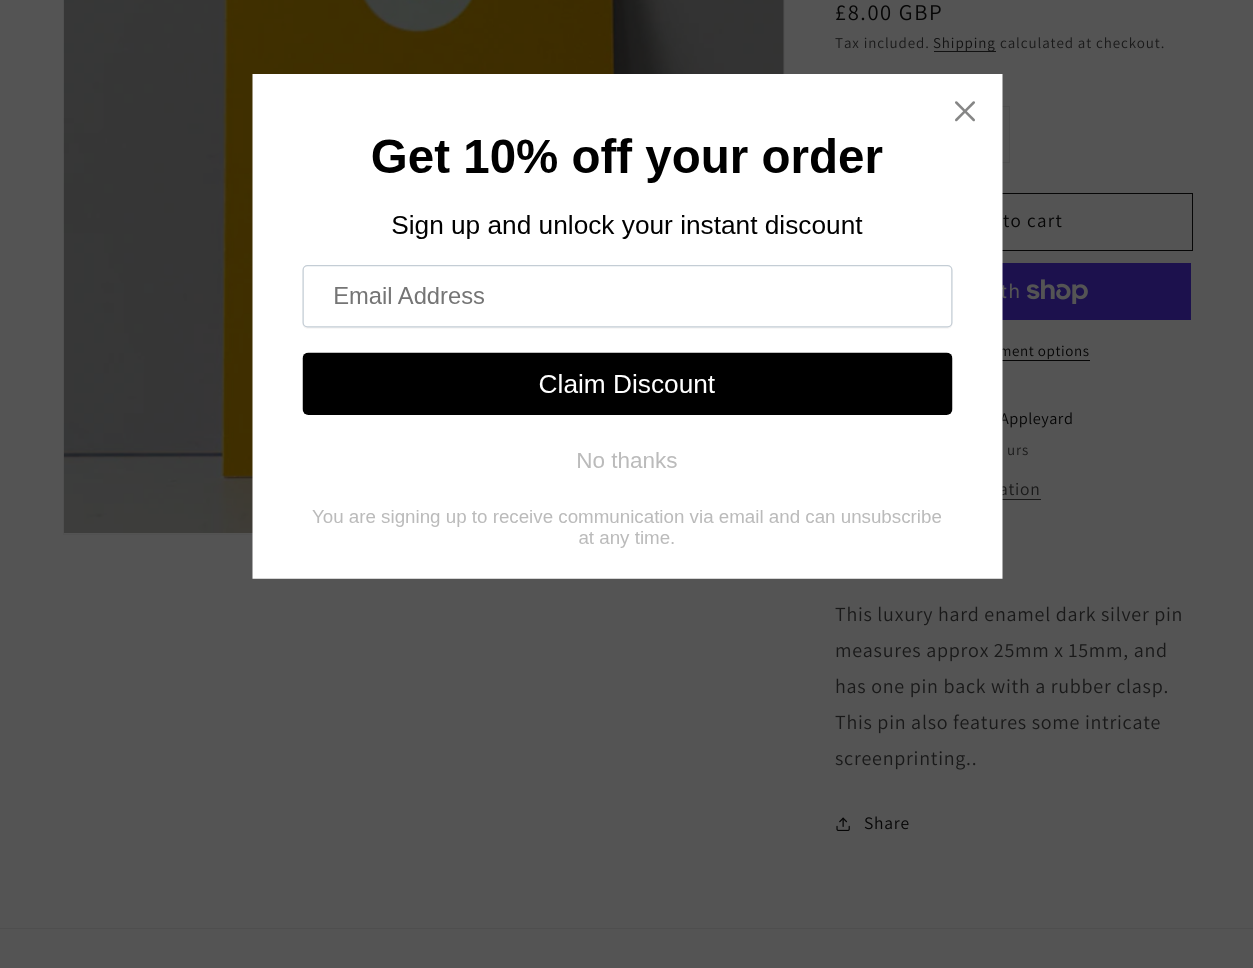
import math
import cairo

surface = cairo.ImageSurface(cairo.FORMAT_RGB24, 1253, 968)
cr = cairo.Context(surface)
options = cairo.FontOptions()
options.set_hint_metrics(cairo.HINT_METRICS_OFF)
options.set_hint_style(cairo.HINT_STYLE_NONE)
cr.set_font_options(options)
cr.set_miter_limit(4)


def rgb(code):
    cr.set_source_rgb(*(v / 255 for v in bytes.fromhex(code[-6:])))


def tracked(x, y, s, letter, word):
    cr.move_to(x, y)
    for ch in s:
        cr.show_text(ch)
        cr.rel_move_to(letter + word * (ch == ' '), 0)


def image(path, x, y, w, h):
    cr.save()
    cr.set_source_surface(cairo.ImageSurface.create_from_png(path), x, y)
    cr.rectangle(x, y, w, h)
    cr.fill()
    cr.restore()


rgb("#ffffff")
cr.paint()
cr.rectangle(63.5, -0.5, 721, 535)
rgb("#f6f6f6")
cr.set_line_width(1)
cr.stroke()
image("img/2.png", 63, 0, 721, 534)
rgb("#363636")
cr.rectangle(934, 51, 62, 1)
cr.fill()
cr.rectangle(835.5, 106.5, 174, 56)
rgb("#ececec")
cr.stroke()
cr.rectangle(834.5, 193.5, 358, 57)
rgb("#121212")
cr.stroke()
rgb("#5433eb")
cr.rectangle(1002, 263, 189, 57)
cr.fill()
image("img/3.png", 1026, 279, 62, 25)
rgb("#121212")
cr.rectangle(1002, 360, 88, 1)
cr.fill()
rgb("#4d4d4d")
cr.rectangle(1002, 499, 39, 1)
cr.fill()
image("img/4.png", 836, 817, 14, 14)
rgb("#ececec")
cr.rectangle(0, 928, 1253, 1)
cr.fill()
cr.select_font_face("Assistant")
cr.set_font_size(22.5)
rgb("#121212")
tracked(835, 20, "£8.00 GBP", 1.6, 0)
cr.set_font_size(15)
rgb("#4d4d4d")
tracked(835, 48, "Tax included.", 0.9, 0)
rgb("#353535")
tracked(933, 48, "Shipping", 0.9, 0)
rgb("#4d4d4d")
tracked(1000, 48, "calculated at checkout.", 0.9, 0)
cr.set_font_size(19)
rgb("#121212")
tracked(1003, 227, "to cart", 1.25, 0)
cr.select_font_face("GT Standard")
cr.set_font_size(20)
rgb("#ffffff")
tracked(1000, 298, "th", 0.75, 0)
cr.select_font_face("Assistant")
cr.set_font_size(15)
rgb("#121212")
tracked(999, 356, "ment options", 0.6, 0)
cr.set_font_size(16.25)
tracked(1000, 424, "Appleyard", 0.5, 0)
cr.set_font_size(15)
rgb("#4d4d4d")
tracked(1007, 455, "urs", 0.9, 0)
cr.set_font_size(17.5)
tracked(999, 495, "ation", 0.75, 0)
cr.set_font_size(20)
for x, y, s in [
    (835, 621, "This luxury hard enamel dark silver pin"),
    (835, 657, "measures approx 25mm x 15mm, and"),
    (835, 693, "has one pin back with a rubber clasp."),
    (835, 729, "This pin also features some intricate"),
    (835, 765, "screenprinting.."),
]:
    tracked(x, y, s, 0.75, 0)
cr.set_font_size(17.5)
rgb("#121212")
tracked(864, 829, "Share", 0.75, 0)
image("img/1.png", 0, 0, 1253, 968)
surface.write_to_png("page.png")
